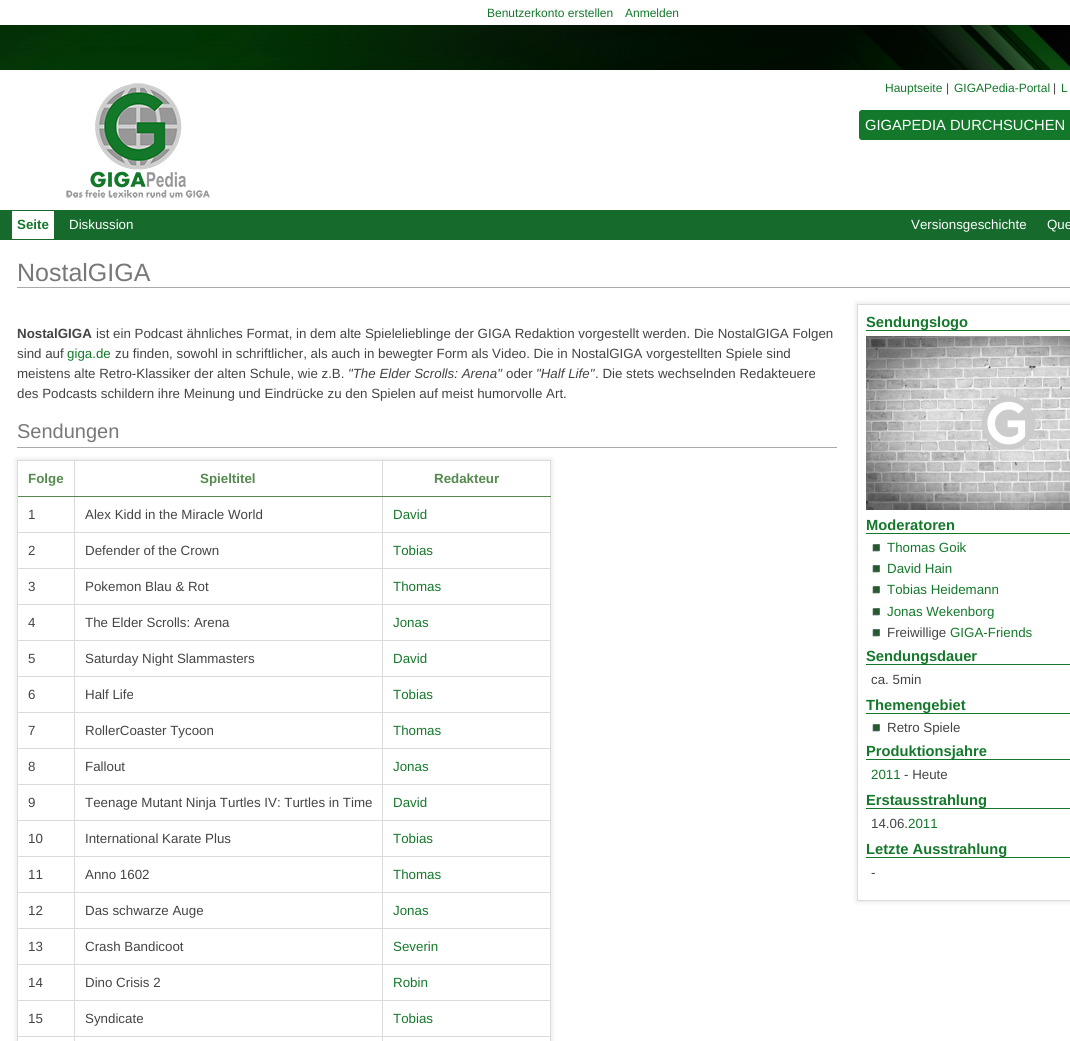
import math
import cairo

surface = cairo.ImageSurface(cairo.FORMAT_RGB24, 1070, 1041)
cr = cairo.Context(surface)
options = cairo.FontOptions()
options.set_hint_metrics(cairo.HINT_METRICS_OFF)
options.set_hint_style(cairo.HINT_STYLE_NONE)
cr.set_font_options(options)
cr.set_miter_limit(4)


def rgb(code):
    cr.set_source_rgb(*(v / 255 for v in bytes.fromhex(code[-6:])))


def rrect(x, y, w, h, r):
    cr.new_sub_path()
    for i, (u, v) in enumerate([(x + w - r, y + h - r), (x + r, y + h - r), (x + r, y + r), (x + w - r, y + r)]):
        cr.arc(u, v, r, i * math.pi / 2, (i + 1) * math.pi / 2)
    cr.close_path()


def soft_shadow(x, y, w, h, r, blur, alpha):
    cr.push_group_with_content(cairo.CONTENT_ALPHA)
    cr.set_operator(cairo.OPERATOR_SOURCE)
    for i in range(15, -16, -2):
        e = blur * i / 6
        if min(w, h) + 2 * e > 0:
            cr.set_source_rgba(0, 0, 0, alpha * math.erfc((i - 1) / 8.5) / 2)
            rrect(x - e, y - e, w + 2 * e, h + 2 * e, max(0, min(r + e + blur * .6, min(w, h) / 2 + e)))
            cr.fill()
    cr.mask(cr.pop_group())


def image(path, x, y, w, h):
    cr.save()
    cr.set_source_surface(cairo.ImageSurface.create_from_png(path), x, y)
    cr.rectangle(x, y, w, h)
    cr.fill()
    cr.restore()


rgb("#ffffff")
cr.paint()
image("img/1.png", 0, 25, 1070, 45)
image("img/2.png", 66, 83, 144, 115)
rgb("#13782a")
rrect(859.5, 110.5, 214, 29, 2.5)
cr.fill_preserve()
cr.set_line_width(1)
cr.stroke()
for x, y, w, h, color in [
    (0, 210, 1070, 30, "#166b2c"),
    (12, 211, 42, 28, "#ffffff"),
    (17, 287, 1053, 1, "#aaaaaa"),
]:
    rgb(color)
    cr.rectangle(x, y, w, h)
    cr.fill()
cr.save()
cr.set_fill_rule(cairo.FILL_RULE_EVEN_ODD)
cr.new_path()
cr.move_to(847, 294)
cr.line_to(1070, 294)
cr.line_to(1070, 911)
cr.line_to(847, 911)
cr.close_path()
cr.move_to(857, 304)
cr.line_to(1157, 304)
cr.line_to(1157, 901)
cr.line_to(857, 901)
cr.close_path()
cr.clip()
rgb("#000000")
soft_shadow(856, 303, 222, 599, 0, 2.5, 0.1)
cr.restore()
cr.rectangle(857.5, 304.5, 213, 596)
rgb("#dbdbdb")
cr.stroke()
rgb("#14782b")
cr.rectangle(866, 330, 204, 1)
cr.fill()
image("img/3.png", 866, 336, 204, 174)
cr.rectangle(866, 533, 204, 1)
cr.fill()
image("img/4.png", 872, 544, 8, 8)
image("img/4.png", 872, 565, 8, 8)
image("img/4.png", 872, 586, 8, 8)
image("img/4.png", 872, 608, 8, 8)
image("img/4.png", 872, 629, 8, 8)
cr.rectangle(866, 664, 204, 1)
cr.fill()
cr.rectangle(866, 713, 204, 1)
cr.fill()
image("img/4.png", 872, 724, 8, 8)
for x, y, w, h, color in [
    (866, 759, 204, 1, "#14782b"),
    (866, 808, 204, 1, "#14782b"),
    (866, 857, 204, 1, "#14782b"),
    (17, 447, 820, 1, "#aaaaaa"),
]:
    rgb(color)
    cr.rectangle(x, y, w, h)
    cr.fill()
cr.save()
cr.set_fill_rule(cairo.FILL_RULE_EVEN_ODD)
cr.new_path()
cr.move_to(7, 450)
cr.line_to(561, 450)
cr.line_to(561, 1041)
cr.line_to(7, 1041)
cr.close_path()
cr.move_to(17, 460)
cr.line_to(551, 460)
cr.line_to(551, 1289)
cr.line_to(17, 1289)
cr.close_path()
cr.clip()
rgb("#000000")
soft_shadow(16, 459, 536, 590, 0, 2.5, 0.1)
cr.restore()
for x, y, w, h, color in [
    (17, 460, 534, 1, "#dbdbdb"),
    (550, 460, 1, 581, "#dbdbdb"),
    (17, 497, 1, 544, "#dbdbdb"),
    (382, 532, 169, 1, "#dbdbdb"),
    (382, 568, 169, 1, "#dbdbdb"),
    (382, 604, 169, 1, "#dbdbdb"),
    (382, 640, 169, 1, "#dbdbdb"),
    (382, 676, 169, 1, "#dbdbdb"),
    (382, 712, 169, 1, "#dbdbdb"),
    (382, 748, 169, 1, "#dbdbdb"),
    (382, 784, 169, 1, "#dbdbdb"),
    (382, 820, 169, 1, "#dbdbdb"),
    (382, 856, 169, 1, "#dbdbdb"),
    (382, 892, 169, 1, "#dbdbdb"),
    (382, 928, 169, 1, "#dbdbdb"),
    (382, 964, 169, 1, "#dbdbdb"),
    (382, 1000, 169, 1, "#dbdbdb"),
    (382, 1036, 169, 1, "#dbdbdb"),
    (382, 1036, 1, 5, "#dbdbdb"),
    (74, 1036, 309, 1, "#dbdbdb"),
    (382, 1000, 1, 37, "#dbdbdb"),
    (74, 1000, 309, 1, "#dbdbdb"),
    (382, 964, 1, 37, "#dbdbdb"),
    (74, 964, 309, 1, "#dbdbdb"),
    (382, 928, 1, 37, "#dbdbdb"),
    (74, 928, 309, 1, "#dbdbdb"),
    (382, 892, 1, 37, "#dbdbdb"),
    (74, 892, 309, 1, "#dbdbdb"),
    (382, 856, 1, 37, "#dbdbdb"),
    (74, 856, 309, 1, "#dbdbdb"),
    (382, 820, 1, 37, "#dbdbdb"),
    (74, 820, 309, 1, "#dbdbdb"),
    (382, 784, 1, 37, "#dbdbdb"),
    (74, 784, 309, 1, "#dbdbdb"),
    (382, 748, 1, 37, "#dbdbdb"),
    (74, 748, 309, 1, "#dbdbdb"),
    (382, 712, 1, 37, "#dbdbdb"),
    (74, 712, 309, 1, "#dbdbdb"),
    (382, 676, 1, 37, "#dbdbdb"),
    (74, 676, 309, 1, "#dbdbdb"),
    (382, 640, 1, 37, "#dbdbdb"),
    (74, 640, 309, 1, "#dbdbdb"),
    (382, 604, 1, 37, "#dbdbdb"),
    (74, 604, 309, 1, "#dbdbdb"),
    (382, 568, 1, 37, "#dbdbdb"),
    (74, 568, 309, 1, "#dbdbdb"),
    (382, 532, 1, 37, "#dbdbdb"),
    (74, 532, 309, 1, "#dbdbdb"),
    (382, 496, 1, 37, "#dbdbdb"),
    (382, 496, 169, 1, "#55894e"),
    (382, 460, 1, 37, "#dbdbdb"),
    (74, 1036, 1, 5, "#dbdbdb"),
    (17, 1036, 58, 1, "#dbdbdb"),
    (74, 1000, 1, 37, "#dbdbdb"),
    (17, 1000, 58, 1, "#dbdbdb"),
    (74, 964, 1, 37, "#dbdbdb"),
    (17, 964, 58, 1, "#dbdbdb"),
    (74, 928, 1, 37, "#dbdbdb"),
    (17, 928, 58, 1, "#dbdbdb"),
    (74, 892, 1, 37, "#dbdbdb"),
    (17, 892, 58, 1, "#dbdbdb"),
    (74, 856, 1, 37, "#dbdbdb"),
    (17, 856, 58, 1, "#dbdbdb"),
    (74, 820, 1, 37, "#dbdbdb"),
    (17, 820, 58, 1, "#dbdbdb"),
    (74, 784, 1, 37, "#dbdbdb"),
    (17, 784, 58, 1, "#dbdbdb"),
    (74, 748, 1, 37, "#dbdbdb"),
    (17, 748, 58, 1, "#dbdbdb"),
    (74, 712, 1, 37, "#dbdbdb"),
    (17, 712, 58, 1, "#dbdbdb"),
    (74, 676, 1, 37, "#dbdbdb"),
    (17, 676, 58, 1, "#dbdbdb"),
    (74, 640, 1, 37, "#dbdbdb"),
    (17, 640, 58, 1, "#dbdbdb"),
    (74, 604, 1, 37, "#dbdbdb"),
    (17, 604, 58, 1, "#dbdbdb"),
    (74, 568, 1, 37, "#dbdbdb"),
    (17, 568, 58, 1, "#dbdbdb"),
    (74, 532, 1, 37, "#dbdbdb"),
    (17, 532, 58, 1, "#dbdbdb"),
    (74, 496, 1, 37, "#dbdbdb"),
    (74, 496, 309, 1, "#55894e"),
    (74, 460, 1, 37, "#dbdbdb"),
    (17, 496, 58, 1, "#55894e"),
    (17, 460, 1, 37, "#dbdbdb"),
]:
    rgb(color)
    cr.rectangle(x, y, w, h)
    cr.fill()
cr.select_font_face("Liberation Sans")
cr.set_font_size(12)
rgb("#14782b")
for x, y, s in [
    (487, 17, "Benutzerkonto erstellen"),
    (625, 17, "Anmelden"),
    (885, 92, "Hauptseite"),
]:
    cr.move_to(x, y)
    cr.show_text(s)
rgb("#444444")
cr.move_to(946, 92)
cr.show_text("|")
rgb("#14782b")
cr.move_to(954, 92)
cr.show_text("GIGAPedia-Portal")
rgb("#444444")
cr.move_to(1053, 92)
cr.show_text("|")
rgb("#14782b")
cr.move_to(1061, 92)
cr.show_text("L")
cr.set_font_size(14.7)
rgb("#ffffff")
cr.move_to(865, 130)
cr.show_text("GIGAPEDIA DURCHSUCHEN")
cr.select_font_face("Liberation Sans", cairo.FONT_SLANT_NORMAL, cairo.FONT_WEIGHT_BOLD)
cr.set_font_size(13.33)
rgb("#14782b")
cr.move_to(17, 229)
cr.show_text("Seite")
cr.select_font_face("Liberation Sans")
rgb("#ffffff")
for x, y, s in [
    (69, 229, "Diskussion"),
    (911, 229, "Versionsgeschichte"),
    (1047, 229, "Que"),
]:
    cr.move_to(x, y)
    cr.show_text(s)
cr.set_font_size(25)
rgb("#787878")
cr.move_to(17, 281)
cr.show_text("NostalGIGA")
cr.select_font_face("Liberation Sans", cairo.FONT_SLANT_NORMAL, cairo.FONT_WEIGHT_BOLD)
cr.set_font_size(13.33)
rgb("#444444")
cr.move_to(17, 338)
cr.show_text("NostalGIGA")
cr.select_font_face("Liberation Sans")
cr.move_to(96, 338)
cr.show_text("ist ein Podcast ähnliches Format, in dem alte Spielelieblinge der GIGA Redaktion vorgestellt werden. Die NostalGIGA Folgen")
cr.move_to(17, 358)
cr.show_text("sind auf")
rgb("#14782b")
cr.move_to(67, 358)
cr.show_text("giga.de")
rgb("#444444")
cr.move_to(115, 358)
cr.show_text("zu finden, sowohl in schriftlicher, als auch in bewegter Form als Video. Die in NostalGIGA vorgestellten Spiele sind")
cr.move_to(17, 378)
cr.show_text("meistens alte Retro-Klassiker der alten Schule, wie z.B.")
cr.select_font_face("Liberation Sans", cairo.FONT_SLANT_ITALIC)
cr.move_to(348, 378)
cr.show_text("\"The Elder Scrolls: Arena\"")
cr.select_font_face("Liberation Sans")
cr.move_to(506, 378)
cr.show_text("oder")
cr.select_font_face("Liberation Sans", cairo.FONT_SLANT_ITALIC)
cr.move_to(536, 378)
cr.show_text("\"Half Life\"")
cr.select_font_face("Liberation Sans")
cr.move_to(595, 378)
cr.show_text(". Die stets wechselnden Redakteuere")
cr.move_to(17, 398)
cr.show_text("des Podcasts schildern ihre Meinung und Eindrücke zu den Spielen auf meist humorvolle Art.")
cr.select_font_face("Liberation Sans", cairo.FONT_SLANT_NORMAL, cairo.FONT_WEIGHT_BOLD)
cr.set_font_size(14.7)
rgb("#14782b")
cr.move_to(866, 327)
cr.show_text("Sendungslogo")
cr.move_to(866, 530)
cr.show_text("Moderatoren")
cr.select_font_face("Liberation Sans")
cr.set_font_size(13.33)
for x, y, s in [
    (887, 552, "Thomas Goik"),
    (887, 573, "David Hain"),
    (887, 594, "Tobias Heidemann"),
    (887, 616, "Jonas Wekenborg"),
]:
    cr.move_to(x, y)
    cr.show_text(s)
rgb("#444444")
cr.move_to(887, 637)
cr.show_text("Freiwillige")
rgb("#14782b")
cr.move_to(950, 637)
cr.show_text("GIGA-Friends")
cr.select_font_face("Liberation Sans", cairo.FONT_SLANT_NORMAL, cairo.FONT_WEIGHT_BOLD)
cr.set_font_size(14.7)
cr.move_to(866, 661)
cr.show_text("Sendungsdauer")
cr.select_font_face("Liberation Sans")
cr.set_font_size(13.33)
rgb("#444444")
cr.move_to(871, 684)
cr.show_text("ca. 5min")
cr.select_font_face("Liberation Sans", cairo.FONT_SLANT_NORMAL, cairo.FONT_WEIGHT_BOLD)
cr.set_font_size(14.7)
rgb("#14782b")
cr.move_to(866, 710)
cr.show_text("Themengebiet")
cr.select_font_face("Liberation Sans")
cr.set_font_size(13.33)
rgb("#444444")
cr.move_to(887, 732)
cr.show_text("Retro Spiele")
cr.select_font_face("Liberation Sans", cairo.FONT_SLANT_NORMAL, cairo.FONT_WEIGHT_BOLD)
cr.set_font_size(14.7)
rgb("#14782b")
cr.move_to(866, 756)
cr.show_text("Produktionsjahre")
cr.select_font_face("Liberation Sans")
cr.set_font_size(13.33)
cr.move_to(871, 779)
cr.show_text("2011")
rgb("#444444")
cr.move_to(904, 779)
cr.show_text("- Heute")
cr.select_font_face("Liberation Sans", cairo.FONT_SLANT_NORMAL, cairo.FONT_WEIGHT_BOLD)
cr.set_font_size(14.7)
rgb("#14782b")
cr.move_to(866, 805)
cr.show_text("Erstausstrahlung")
cr.select_font_face("Liberation Sans")
cr.set_font_size(13.33)
rgb("#444444")
cr.move_to(871, 828)
cr.show_text("14.06.")
rgb("#14782b")
cr.move_to(908, 828)
cr.show_text("2011")
cr.select_font_face("Liberation Sans", cairo.FONT_SLANT_NORMAL, cairo.FONT_WEIGHT_BOLD)
cr.set_font_size(14.7)
cr.move_to(866, 854)
cr.show_text("Letzte Ausstrahlung")
cr.select_font_face("Liberation Sans")
cr.set_font_size(13.33)
rgb("#444444")
cr.move_to(871, 877)
cr.show_text("-")
cr.set_font_size(20)
rgb("#787878")
cr.move_to(17, 438)
cr.show_text("Sendungen")
cr.select_font_face("Liberation Sans", cairo.FONT_SLANT_NORMAL, cairo.FONT_WEIGHT_BOLD)
cr.set_font_size(13.33)
rgb("#55894e")
for x, y, s in [
    (28, 483, "Folge"),
    (200, 483, "Spieltitel"),
    (434, 483, "Redakteur"),
]:
    cr.move_to(x, y)
    cr.show_text(s)
cr.select_font_face("Liberation Sans")
rgb("#444444")
cr.move_to(28, 519)
cr.show_text("1")
cr.move_to(85, 519)
cr.show_text("Alex Kidd in the Miracle World")
rgb("#14782b")
cr.move_to(393, 519)
cr.show_text("David")
rgb("#444444")
cr.move_to(28, 555)
cr.show_text("2")
cr.move_to(85, 555)
cr.show_text("Defender of the Crown")
rgb("#14782b")
cr.move_to(393, 555)
cr.show_text("Tobias")
rgb("#444444")
cr.move_to(28, 591)
cr.show_text("3")
cr.move_to(85, 591)
cr.show_text("Pokemon Blau & Rot")
rgb("#14782b")
cr.move_to(393, 591)
cr.show_text("Thomas")
rgb("#444444")
cr.move_to(28, 627)
cr.show_text("4")
cr.move_to(85, 627)
cr.show_text("The Elder Scrolls: Arena")
rgb("#14782b")
cr.move_to(393, 627)
cr.show_text("Jonas")
rgb("#444444")
cr.move_to(28, 663)
cr.show_text("5")
cr.move_to(85, 663)
cr.show_text("Saturday Night Slammasters")
rgb("#14782b")
cr.move_to(393, 663)
cr.show_text("David")
rgb("#444444")
cr.move_to(28, 699)
cr.show_text("6")
cr.move_to(85, 699)
cr.show_text("Half Life")
rgb("#14782b")
cr.move_to(393, 699)
cr.show_text("Tobias")
rgb("#444444")
cr.move_to(28, 735)
cr.show_text("7")
cr.move_to(85, 735)
cr.show_text("RollerCoaster Tycoon")
rgb("#14782b")
cr.move_to(393, 735)
cr.show_text("Thomas")
rgb("#444444")
cr.move_to(28, 771)
cr.show_text("8")
cr.move_to(85, 771)
cr.show_text("Fallout")
rgb("#14782b")
cr.move_to(393, 771)
cr.show_text("Jonas")
rgb("#444444")
cr.move_to(28, 807)
cr.show_text("9")
cr.move_to(85, 807)
cr.show_text("Teenage Mutant Ninja Turtles IV: Turtles in Time")
rgb("#14782b")
cr.move_to(393, 807)
cr.show_text("David")
rgb("#444444")
cr.move_to(28, 843)
cr.show_text("10")
cr.move_to(85, 843)
cr.show_text("International Karate Plus")
rgb("#14782b")
cr.move_to(393, 843)
cr.show_text("Tobias")
rgb("#444444")
cr.move_to(28, 879)
cr.show_text("11")
cr.move_to(85, 879)
cr.show_text("Anno 1602")
rgb("#14782b")
cr.move_to(393, 879)
cr.show_text("Thomas")
rgb("#444444")
cr.move_to(28, 915)
cr.show_text("12")
cr.move_to(85, 915)
cr.show_text("Das schwarze Auge")
rgb("#14782b")
cr.move_to(393, 915)
cr.show_text("Jonas")
rgb("#444444")
cr.move_to(28, 951)
cr.show_text("13")
cr.move_to(85, 951)
cr.show_text("Crash Bandicoot")
rgb("#14782b")
cr.move_to(393, 951)
cr.show_text("Severin")
rgb("#444444")
cr.move_to(28, 987)
cr.show_text("14")
cr.move_to(85, 987)
cr.show_text("Dino Crisis 2")
rgb("#14782b")
cr.move_to(393, 987)
cr.show_text("Robin")
rgb("#444444")
cr.move_to(28, 1023)
cr.show_text("15")
cr.move_to(85, 1023)
cr.show_text("Syndicate")
rgb("#14782b")
cr.move_to(393, 1023)
cr.show_text("Tobias")
surface.write_to_png("page.png")
